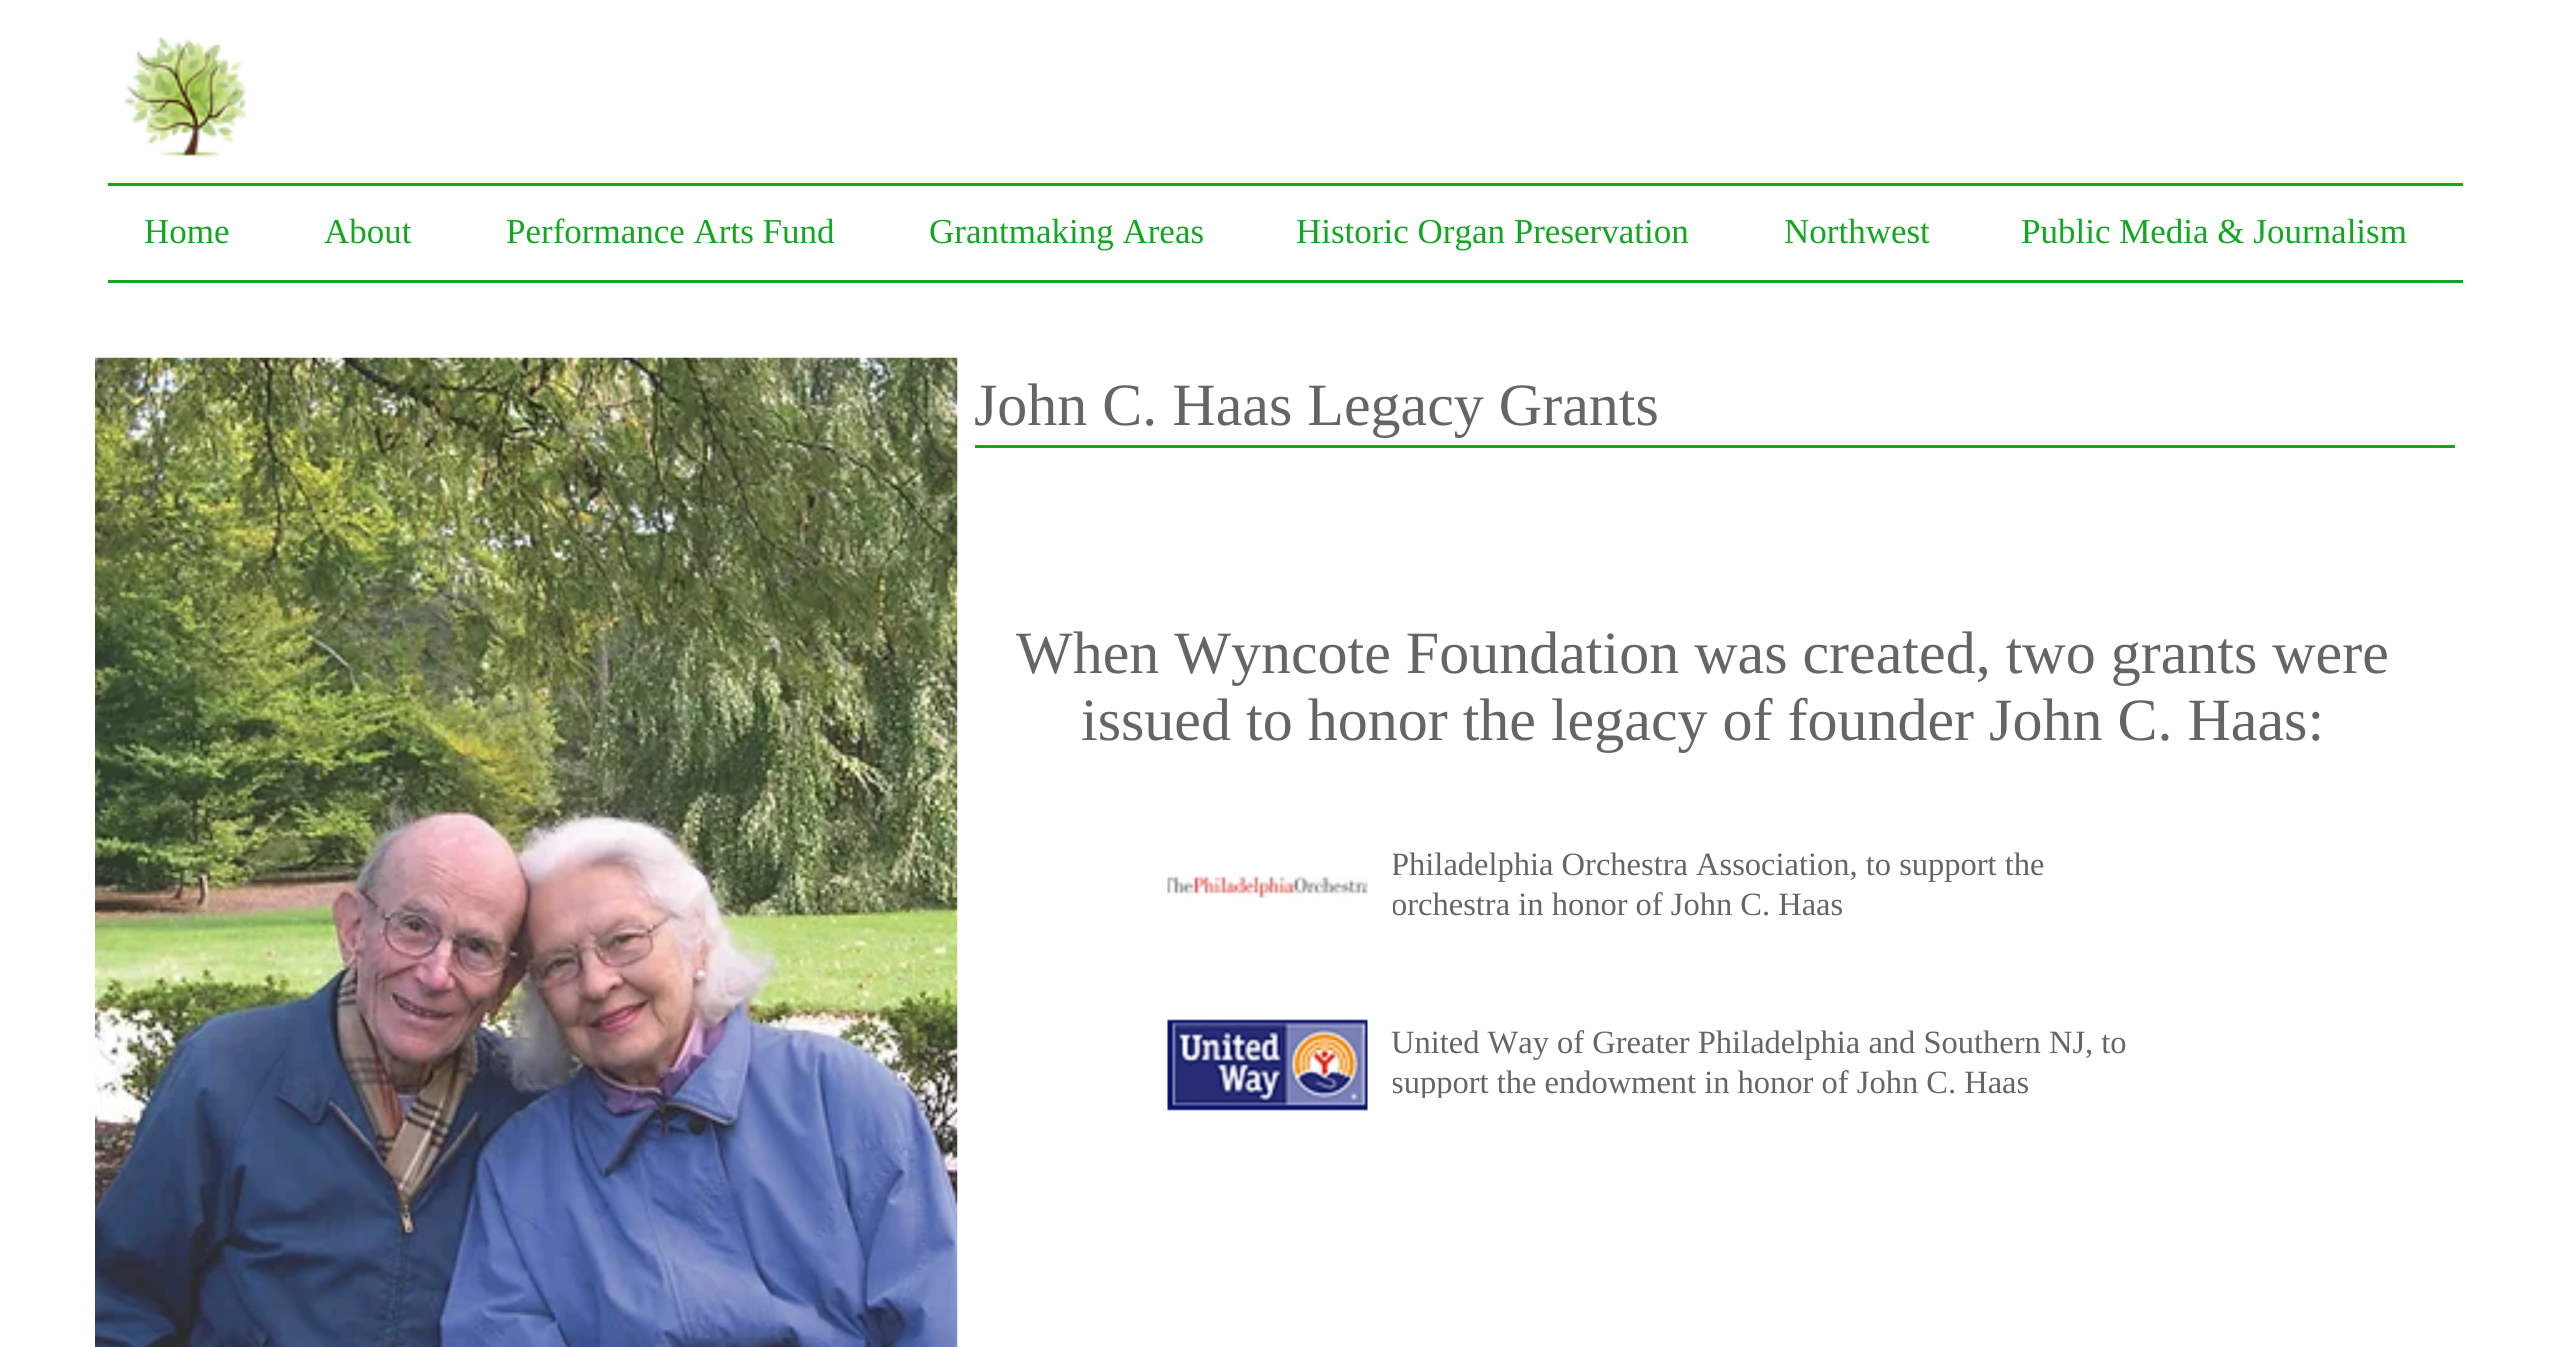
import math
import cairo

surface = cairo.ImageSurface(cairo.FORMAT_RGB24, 2556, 1347)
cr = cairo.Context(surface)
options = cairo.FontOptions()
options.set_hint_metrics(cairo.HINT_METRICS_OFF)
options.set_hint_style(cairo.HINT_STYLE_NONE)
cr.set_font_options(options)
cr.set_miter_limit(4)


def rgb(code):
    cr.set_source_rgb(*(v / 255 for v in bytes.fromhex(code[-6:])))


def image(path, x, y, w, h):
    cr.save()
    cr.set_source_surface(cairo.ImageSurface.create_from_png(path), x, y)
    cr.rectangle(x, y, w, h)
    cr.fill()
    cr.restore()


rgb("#ffffff")
cr.paint()
image("img/1.png", 124, 36, 124, 122)
rgb("#12a721")
cr.rectangle(108, 183, 2355, 3)
cr.fill()
cr.rectangle(108, 280, 2355, 3)
cr.fill()
image("img/2.png", 95, 357, 863, 990)
cr.rectangle(975, 445, 1480, 3)
cr.fill()
image("img/3.png", 1167, 875, 201, 23)
image("img/4.png", 1167, 1019, 201, 92)
cr.select_font_face("Liberation Serif")
cr.set_font_size(35)
for x, y, s in [
    (144, 243, "Home"),
    (324, 243, "About"),
    (506, 243, "Performance Arts Fund"),
    (929, 243, "Grantmaking Areas"),
    (1296, 243, "Historic Organ Preservation"),
    (1784, 243, "Northwest"),
    (2021, 243, "Public Media & Journalism"),
]:
    cr.move_to(x, y)
    cr.show_text(s)
cr.set_font_size(60)
rgb("#656565")
for x, y, s in [
    (974, 425, "John C. Haas Legacy Grants"),
    (1016, 673, "When Wyncote Foundation was created, two grants were"),
    (1081, 740, "issued to honor the legacy of founder John C. Haas:"),
]:
    cr.move_to(x, y)
    cr.show_text(s)
cr.save()
cr.rectangle(1393, 845, 750, 75)
cr.clip()
cr.set_font_size(32.5)
cr.move_to(1391, 875)
cr.show_text("Philadelphia Orchestra Association, to support the")
cr.move_to(1391, 915)
cr.show_text("orchestra in honor of John C. Haas")
cr.restore()
cr.set_font_size(32.5)
cr.move_to(1391, 1053)
cr.show_text("United Way of Greater Philadelphia and Southern NJ, to")
cr.save()
cr.rectangle(1393, 1023, 750, 75)
cr.clip()
cr.move_to(1391, 1093)
cr.show_text("support the endowment in honor of John C. Haas")
cr.restore()
surface.write_to_png("page.png")
